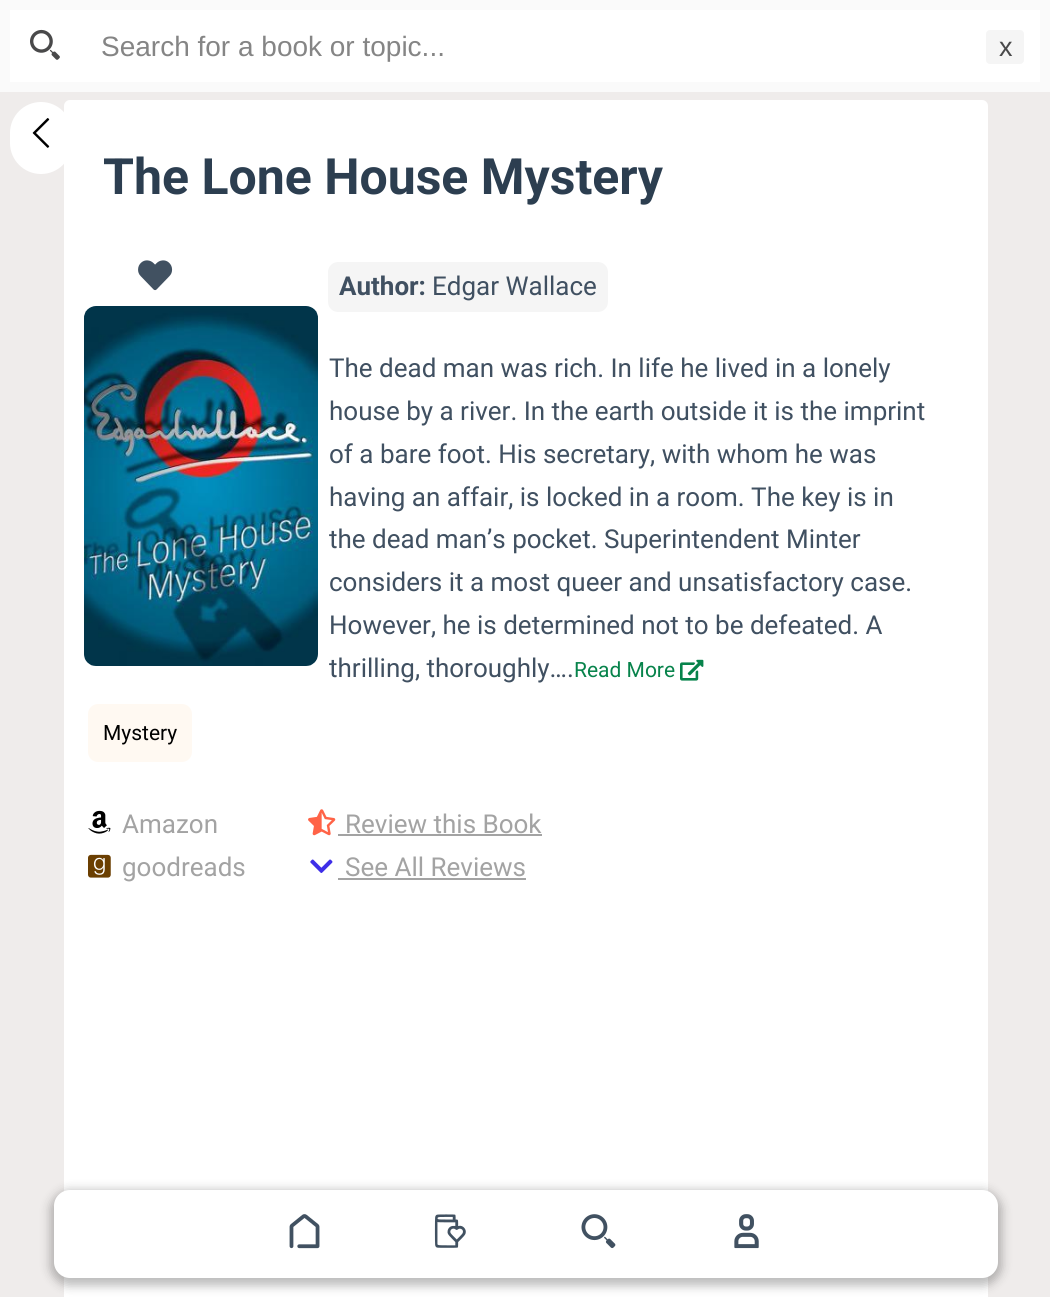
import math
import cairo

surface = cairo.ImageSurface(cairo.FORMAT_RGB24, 1050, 1297)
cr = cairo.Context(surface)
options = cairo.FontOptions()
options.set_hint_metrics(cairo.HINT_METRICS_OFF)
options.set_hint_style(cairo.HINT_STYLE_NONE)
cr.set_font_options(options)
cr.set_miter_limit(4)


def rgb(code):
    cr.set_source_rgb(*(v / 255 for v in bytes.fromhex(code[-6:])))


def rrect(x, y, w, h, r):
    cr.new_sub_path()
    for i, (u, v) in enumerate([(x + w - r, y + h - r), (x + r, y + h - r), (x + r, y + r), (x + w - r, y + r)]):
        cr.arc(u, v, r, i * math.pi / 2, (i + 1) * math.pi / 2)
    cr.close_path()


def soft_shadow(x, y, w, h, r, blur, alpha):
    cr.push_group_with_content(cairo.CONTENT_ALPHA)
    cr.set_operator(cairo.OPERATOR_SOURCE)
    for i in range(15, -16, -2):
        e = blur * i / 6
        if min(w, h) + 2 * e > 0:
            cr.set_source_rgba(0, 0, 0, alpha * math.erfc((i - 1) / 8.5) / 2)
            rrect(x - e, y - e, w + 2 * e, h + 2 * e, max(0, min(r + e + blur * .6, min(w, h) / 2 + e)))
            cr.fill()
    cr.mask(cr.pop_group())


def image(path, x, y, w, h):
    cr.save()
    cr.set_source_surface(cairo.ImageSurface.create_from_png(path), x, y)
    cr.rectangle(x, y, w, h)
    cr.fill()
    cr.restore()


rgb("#efeceb")
cr.paint()
rgb("#ffffff")
cr.rectangle(5, 5, 1040, 82)
cr.fill_preserve()
rgb("#fafafa")
cr.set_line_width(10)
cr.stroke()
image("img/1.png", 30, 29, 30, 31)
rgb("#f5f5f5")
rrect(986, 30, 38, 34, 4)
cr.fill()
rgb("#ffffff")
rrect(64, 100, 924, 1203, 6)
cr.fill()
rrect(10, 102, 62, 72, 31)
cr.fill()
image("img/2.png", 32, 118, 18, 30)
image("img/3.png", 138, 260, 35, 31)
rgb("#f5f5f5")
cr.new_path()
cr.move_to(338, 262)
cr.line_to(426, 262)
cr.line_to(426, 312)
cr.line_to(338, 312)
cr.curve_to(332.5, 312, 328, 307.5, 328, 302)
cr.line_to(328, 272)
cr.curve_to(328, 266.5, 332.5, 262, 338, 262)
cr.close_path()
cr.fill()
cr.new_path()
cr.move_to(426, 262)
cr.line_to(598, 262)
cr.curve_to(603.5, 262, 608, 266.5, 608, 272)
cr.line_to(608, 302)
cr.curve_to(608, 307.5, 603.5, 312, 598, 312)
cr.line_to(426, 312)
cr.close_path()
cr.fill()
image("img/4.png", 84, 306, 234, 360)
image("img/5.png", 680, 659, 24, 22)
rgb("#fff9f2")
rrect(88, 704, 104, 58, 10)
cr.fill()
image("img/6.png", 88, 810, 23, 24)
image("img/7.png", 88, 854, 23, 24)
image("img/8.png", 308, 809, 28, 27)
rgb("#a3a3a3")
cr.rectangle(338, 834, 204, 2)
cr.fill()
image("img/9.png", 310, 859, 23, 14)
cr.rectangle(338, 878, 188, 2)
cr.fill()
rgb("#000000")
soft_shadow(50, 1190, 952, 96, 20, 5, 0.26)
rgb("#ffffff")
rrect(54, 1190, 944, 88, 16)
cr.fill()
image("img/10.png", 289, 1214, 31, 35)
image("img/11.png", 434, 1214, 32, 34)
image("img/12.png", 581, 1214, 35, 35)
image("img/13.png", 734, 1214, 25, 35)
cr.select_font_face("Liberation Sans")
cr.set_font_size(28)
rgb("#858585")
cr.move_to(101, 56)
cr.show_text("Search for a book or topic...")
cr.set_font_size(27)
rgb("#49494a")
cr.move_to(999, 56)
cr.show_text("x")
cr.select_font_face("Roboto", cairo.FONT_SLANT_NORMAL, cairo.FONT_WEIGHT_BOLD)
cr.set_font_size(50)
rgb("#2c3e50")
cr.move_to(103, 194)
cr.show_text("The Lone House Mystery")
cr.set_font_size(26)
rgb("#405061")
cr.move_to(339, 295)
cr.show_text("Author:")
cr.select_font_face("Roboto")
for x, y, s in [
    (432, 295, "Edgar Wallace"),
    (329, 377, "The dead man was rich. In life he lived in a lonely"),
    (329, 420, "house by a river. In the earth outside it is the imprint"),
    (329, 463, "of a bare foot. His secretary, with whom he was"),
    (329, 506, "having an affair, is locked in a room. The key is in"),
    (329, 548, "the dead man’s pocket. Superintendent Minter"),
    (329, 591, "considers it a most queer and unsatisfactory case."),
    (329, 634, "However, he is determined not to be defeated. A"),
    (329, 677, "thrilling, thoroughly…."),
]:
    cr.move_to(x, y)
    cr.show_text(s)
cr.set_font_size(21)
rgb("#07834b")
cr.move_to(574, 677)
cr.show_text("Read More")
rgb("#000000")
cr.move_to(103, 740)
cr.show_text("Mystery")
cr.set_font_size(26)
rgb("#a3a3a3")
for x, y, s in [
    (122, 833, "Amazon"),
    (122, 876, "goodreads"),
    (345, 833, "Review this Book"),
    (345, 876, "See All Reviews"),
]:
    cr.move_to(x, y)
    cr.show_text(s)
surface.write_to_png("page.png")
